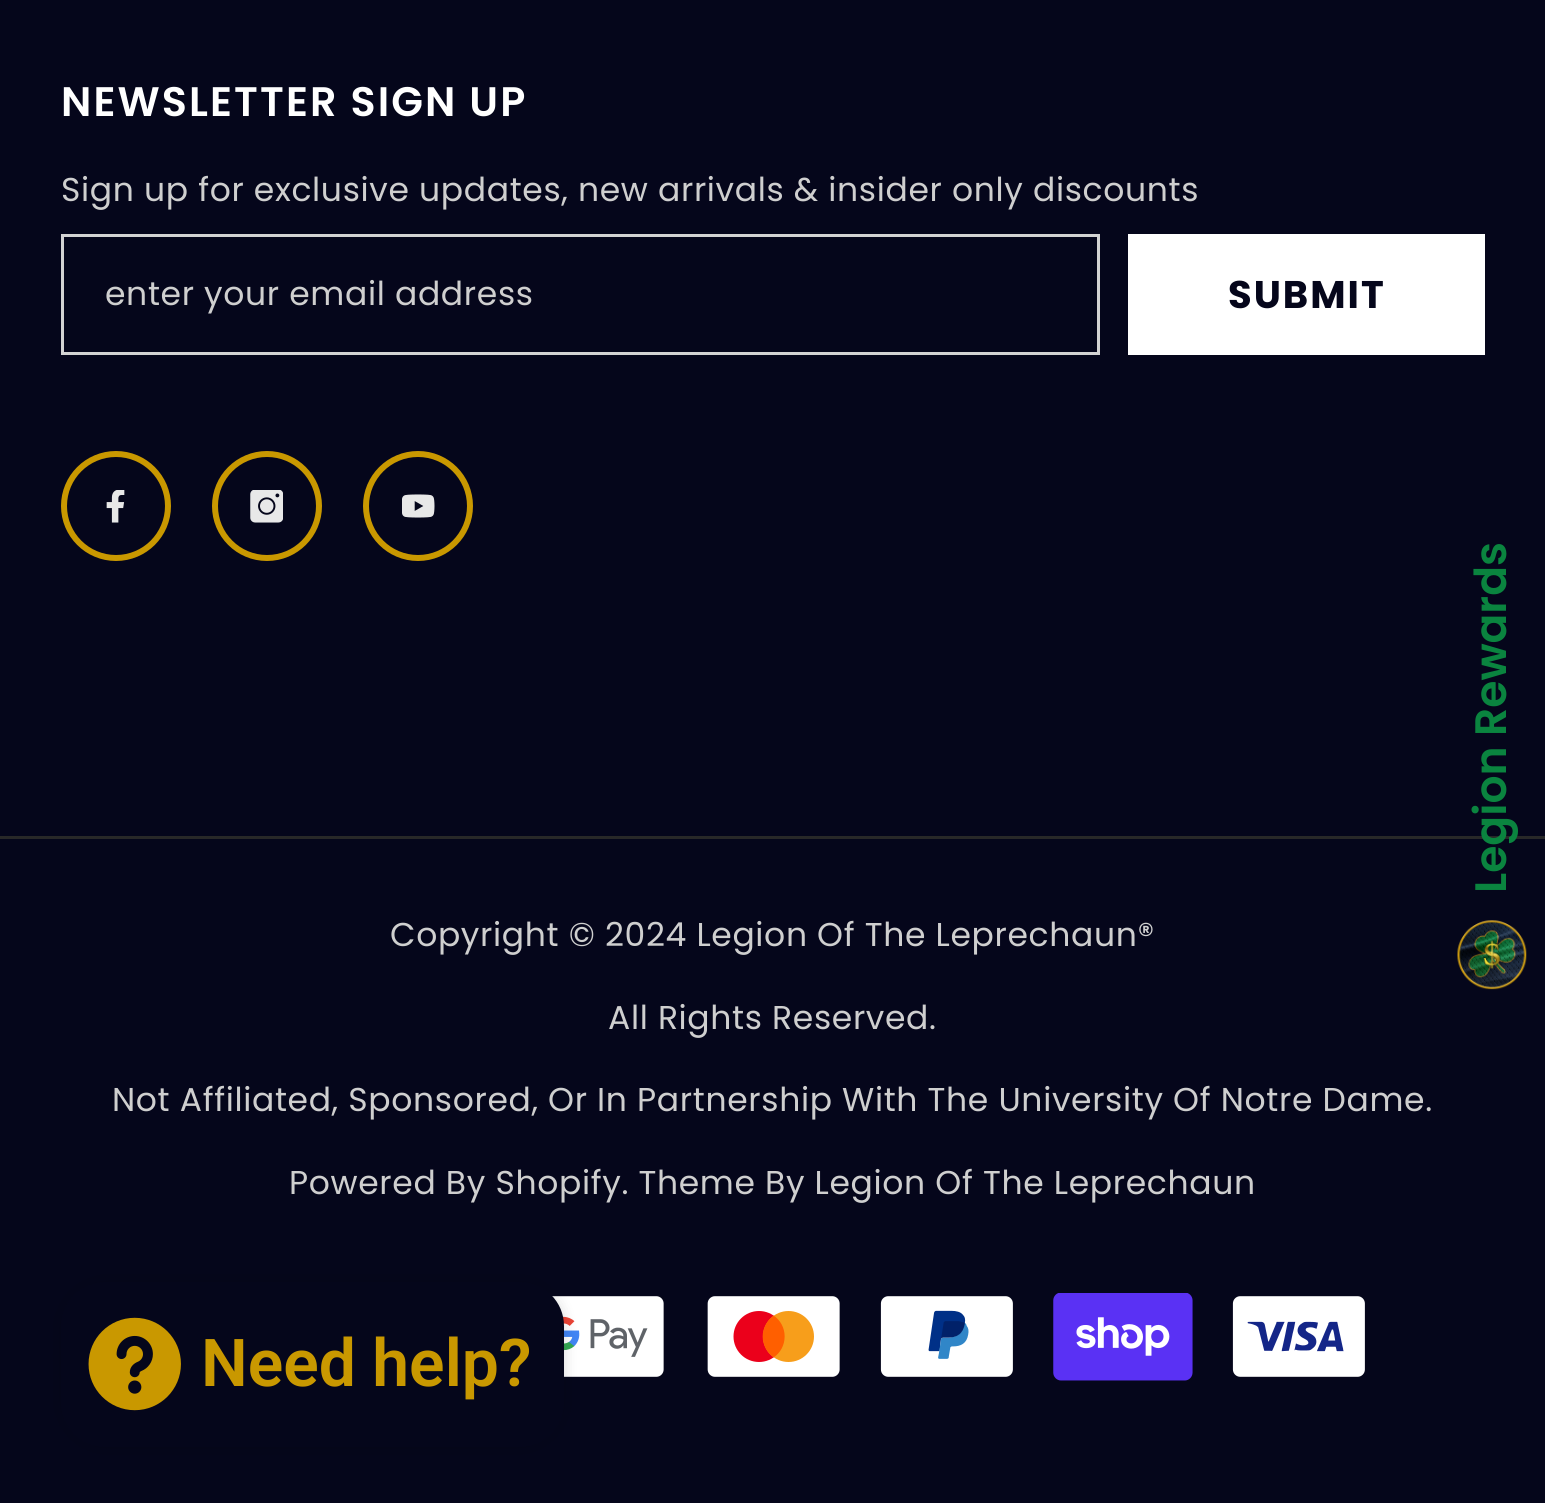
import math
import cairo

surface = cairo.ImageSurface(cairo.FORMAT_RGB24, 1545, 1503)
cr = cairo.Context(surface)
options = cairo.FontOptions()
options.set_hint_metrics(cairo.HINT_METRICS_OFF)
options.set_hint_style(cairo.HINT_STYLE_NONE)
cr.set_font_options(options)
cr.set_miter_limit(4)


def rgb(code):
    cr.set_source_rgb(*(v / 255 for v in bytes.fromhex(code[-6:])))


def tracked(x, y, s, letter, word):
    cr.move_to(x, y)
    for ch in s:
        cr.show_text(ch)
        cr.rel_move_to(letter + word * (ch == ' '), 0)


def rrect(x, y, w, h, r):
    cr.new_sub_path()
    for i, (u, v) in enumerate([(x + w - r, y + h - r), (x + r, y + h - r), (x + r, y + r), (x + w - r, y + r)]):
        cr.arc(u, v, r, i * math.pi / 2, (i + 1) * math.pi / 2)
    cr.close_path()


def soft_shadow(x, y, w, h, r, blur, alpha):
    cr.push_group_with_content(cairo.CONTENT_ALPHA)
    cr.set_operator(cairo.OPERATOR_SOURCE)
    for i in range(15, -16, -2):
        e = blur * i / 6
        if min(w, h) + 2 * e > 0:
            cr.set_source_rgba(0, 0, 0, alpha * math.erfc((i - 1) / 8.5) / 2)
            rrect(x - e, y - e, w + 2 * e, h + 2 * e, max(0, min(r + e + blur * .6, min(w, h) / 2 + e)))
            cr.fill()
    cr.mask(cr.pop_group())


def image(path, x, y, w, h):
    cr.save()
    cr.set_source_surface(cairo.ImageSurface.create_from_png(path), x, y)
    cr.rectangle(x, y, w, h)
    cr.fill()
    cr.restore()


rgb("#05061b")
cr.paint()
cr.rectangle(62.5, 235.5, 1036, 118)
rgb("#d3d3d3")
cr.set_line_width(3)
cr.stroke()
rgb("#ffffff")
cr.rectangle(1128, 234, 357, 121)
cr.fill()
cr.arc(116, 506, 52, 0, 2 * math.pi)
rgb("#c99800")
cr.set_line_width(6)
cr.stroke()
image("img/1.png", 106, 490, 19, 33)
cr.arc(267, 506, 52, 0, 2 * math.pi)
cr.stroke()
image("img/2.png", 250, 490, 33, 33)
cr.arc(418, 506, 52, 0, 2 * math.pi)
cr.stroke()
image("img/3.png", 402, 494, 33, 24)
rgb("#282828")
cr.rectangle(0, 836, 1545, 3)
cr.fill()
image("img/4.png", 552, 1296, 112, 81)
image("img/5.png", 707, 1296, 133, 81)
image("img/6.png", 880, 1296, 133, 81)
image("img/7.png", 1053, 1293, 140, 88)
image("img/8.png", 1232, 1296, 133, 81)
image("img/9.png", 1457, 920, 70, 70)
rgb("#000000")
soft_shadow(61, 1282, 503, 165, 44, 7, 0.15)
rgb("#05061b")
rrect(61, 1282, 503, 165, 44)
cr.fill()
image("img/10.png", 88, 1317, 93, 94)
cr.select_font_face("Poppins SemiBold")
cr.set_font_size(41.25)
rgb("#ffffff")
tracked(61, 116, "NEWSLETTER SIGN UP", 2.1, 0)
cr.select_font_face("Poppins")
cr.set_font_size(33)
rgb("#cfcfcf")
tracked(61, 201, "Sign up for exclusive updates, new arrivals & insider only discounts", 0.65, 0)
tracked(105, 305, "enter your email address", 0.65, 0)
cr.select_font_face("Poppins", cairo.FONT_SLANT_NORMAL, cairo.FONT_WEIGHT_BOLD)
cr.set_font_size(38.5)
rgb("#05061b")
tracked(1228, 308, "SUBMIT", 2, 0)
cr.select_font_face("Poppins")
cr.set_font_size(33)
rgb("#cfcfcf")
for x, y, s in [
    (390, 946, "Copyright © 2024 Legion Of The Leprechaun®"),
    (608, 1029, "All Rights Reserved."),
    (112, 1111, "Not Affiliated, Sponsored, Or In Partnership With The University Of Notre Dame."),
    (289, 1194, "Powered By Shopify. Theme By Legion Of The Leprechaun"),
]:
    tracked(x, y, s, 0.65, 0)
cr.select_font_face("Poppins SemiBold")
cr.set_font_size(44)
rgb("#0a843f")
cr.save()
cr.translate(1506, 893)
cr.rotate(-90 * math.pi / 180)
cr.move_to(0, 0)
cr.show_text("Legion Rewards")
cr.restore()
cr.select_font_face("Roboto SemiBold")
cr.set_font_size(66)
rgb("#c99800")
cr.move_to(201, 1386)
cr.show_text("Need help?")
surface.write_to_png("page.png")
